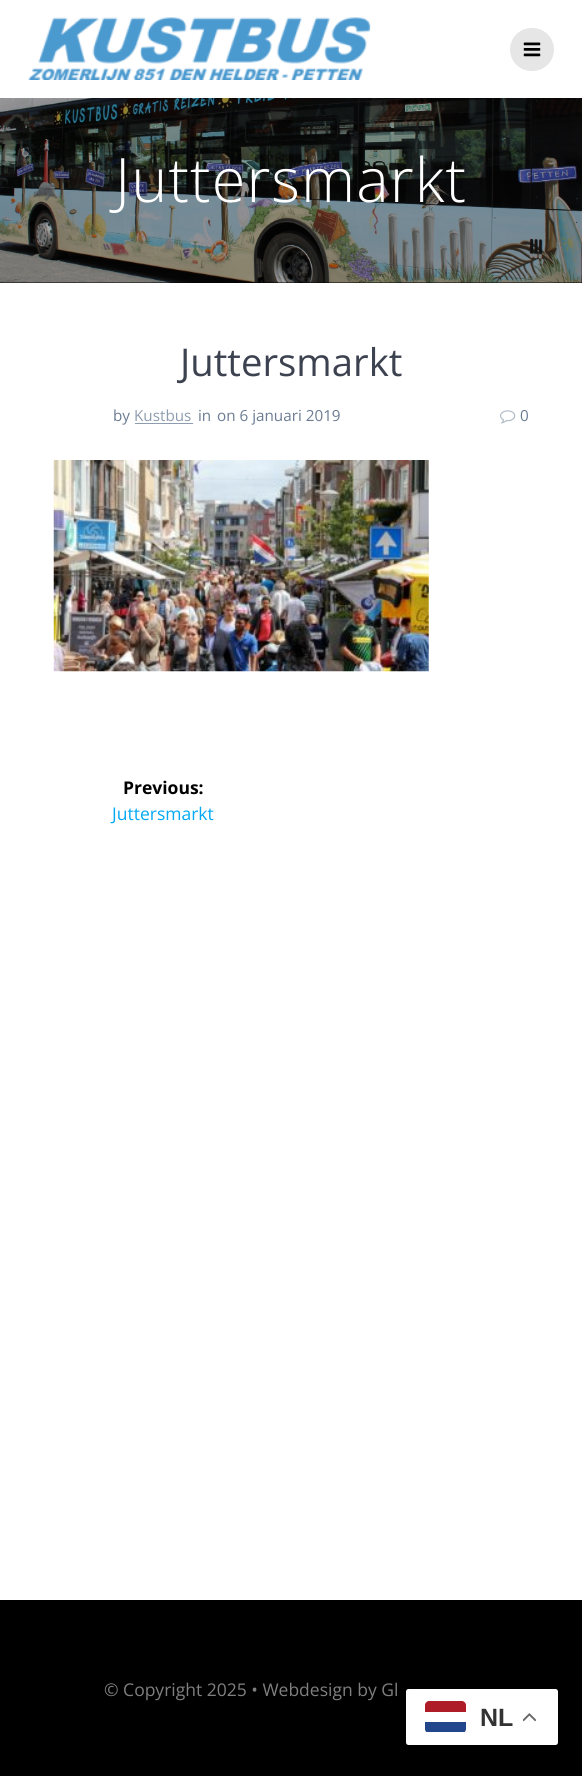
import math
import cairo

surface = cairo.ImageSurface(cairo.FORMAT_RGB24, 582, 1776)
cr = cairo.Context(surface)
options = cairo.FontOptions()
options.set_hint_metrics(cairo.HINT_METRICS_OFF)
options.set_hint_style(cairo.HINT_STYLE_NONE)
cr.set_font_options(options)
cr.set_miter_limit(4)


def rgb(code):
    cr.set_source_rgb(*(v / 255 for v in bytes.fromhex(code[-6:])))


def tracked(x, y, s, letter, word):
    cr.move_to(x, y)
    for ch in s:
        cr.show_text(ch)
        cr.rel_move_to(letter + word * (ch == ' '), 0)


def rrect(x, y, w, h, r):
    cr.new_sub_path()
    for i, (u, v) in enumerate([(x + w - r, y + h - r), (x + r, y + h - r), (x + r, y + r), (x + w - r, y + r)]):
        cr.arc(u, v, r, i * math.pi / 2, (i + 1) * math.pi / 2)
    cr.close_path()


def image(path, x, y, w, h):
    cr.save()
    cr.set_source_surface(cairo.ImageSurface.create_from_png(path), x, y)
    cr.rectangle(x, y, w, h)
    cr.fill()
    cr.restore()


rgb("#ffffff")
cr.paint()
image("img/1.png", 28, 17, 343, 63)
rgb("#e6e6e6")
rrect(510, 28, 44, 43, 21.5)
cr.fill()
image("img/2.png", 523, 42, 18, 15)
rgb("#000000")
cr.rectangle(0, 282, 582, 1)
cr.fill()
image("img/3.png", 0, 98, 582, 185)
rgb("#8e9dae")
cr.rectangle(135, 423, 58, 1)
cr.fill()
image("img/4.png", 500, 410, 16, 14)
image("img/5.png", 53, 460, 376, 212)
rgb("#000000")
cr.rectangle(0, 1600, 582, 176)
cr.fill()
rgb("#ffffff")
rrect(406, 1689, 152, 56, 2.5)
cr.fill()
cr.save()
rrect(425, 1701, 41, 32, 4)
cr.clip()
rgb("#21468b")
cr.rectangle(425, 1722, 41, 10)
cr.fill()
cr.restore()
rgb("#ae1c28")
cr.new_path()
cr.move_to(429, 1701)
cr.line_to(462, 1701)
cr.curve_to(464, 1701, 466, 1703, 466, 1705)
cr.line_to(466, 1712)
cr.line_to(425, 1712)
cr.line_to(425, 1705)
cr.curve_to(425, 1703, 427, 1701, 429, 1701)
cr.close_path()
cr.fill()
image("img/6.png", 523, 1713, 13, 9)
cr.select_font_face("Open Sans Light")
cr.set_font_size(61.25)
rgb("#ffffff")
tracked(115, 202, "Juttersmarkt", 1.1, 0)
cr.select_font_face("Open Sans")
cr.set_font_size(38.25)
rgb("#3c424f")
cr.move_to(180, 376)
cr.show_text("Juttersmarkt")
cr.set_font_size(15.25)
rgb("#6b7c93")
cr.move_to(113, 421)
cr.show_text("by")
rgb("#8e9dae")
cr.move_to(134, 421)
cr.show_text("Kustbus")
rgb("#6b7c93")
for x, y, s in [
    (198, 421, "in"),
    (217, 421, "on 6 januari 2019"),
    (520, 421, "0"),
]:
    cr.move_to(x, y)
    cr.show_text(s)
cr.select_font_face("Open Sans", cairo.FONT_SLANT_NORMAL, cairo.FONT_WEIGHT_BOLD)
cr.set_font_size(17.5)
rgb("#000000")
cr.move_to(123, 794)
cr.show_text("Previous:")
cr.select_font_face("Open Sans")
rgb("#03a9f4")
cr.move_to(112, 820)
cr.show_text("Juttersmarkt")
rgb("#807f7f")
cr.move_to(104, 1696)
cr.show_text("© Copyright 2025 • Webdesign by Gl")
cr.select_font_face("Liberation Sans", cairo.FONT_SLANT_NORMAL, cairo.FONT_WEIGHT_BOLD)
cr.set_font_size(25)
rgb("#333333")
cr.move_to(480, 1726)
cr.show_text("NL")
surface.write_to_png("page.png")
